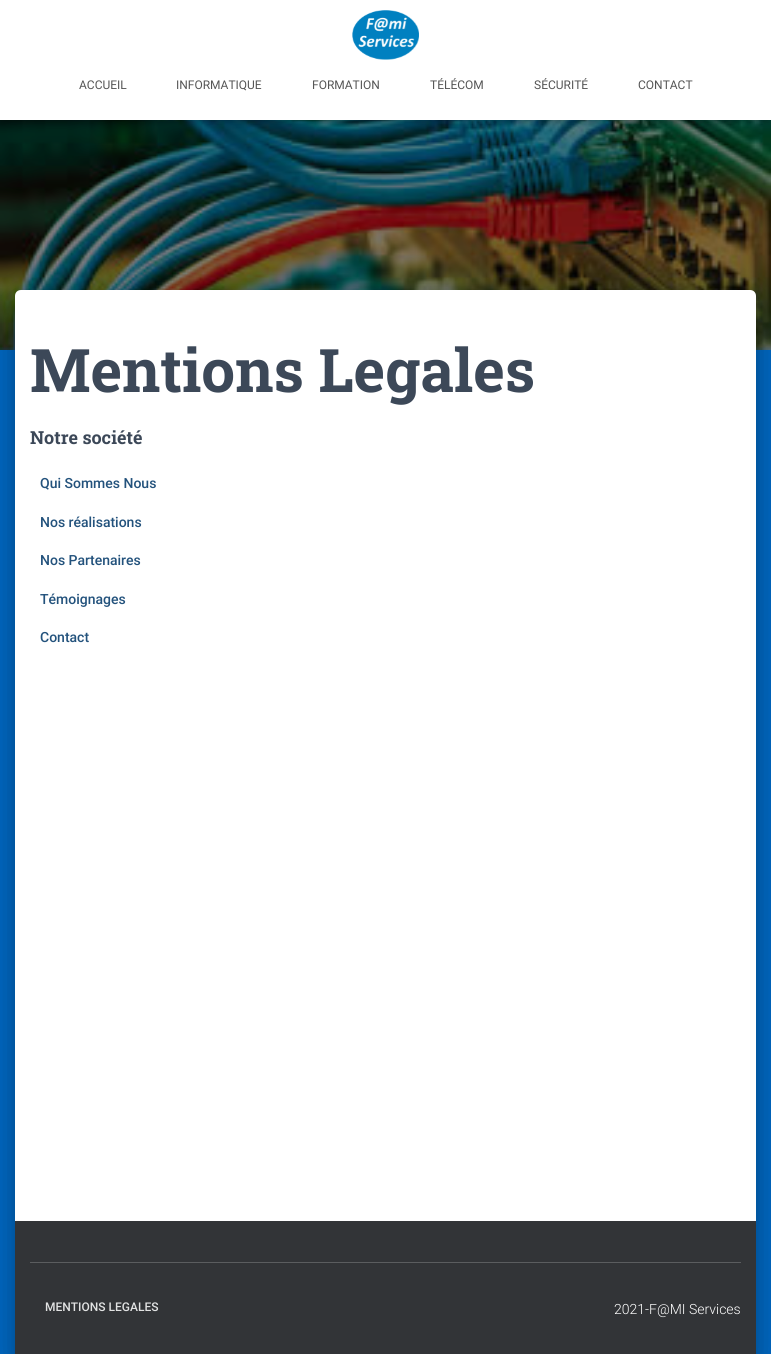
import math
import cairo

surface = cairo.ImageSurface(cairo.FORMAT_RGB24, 771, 1354)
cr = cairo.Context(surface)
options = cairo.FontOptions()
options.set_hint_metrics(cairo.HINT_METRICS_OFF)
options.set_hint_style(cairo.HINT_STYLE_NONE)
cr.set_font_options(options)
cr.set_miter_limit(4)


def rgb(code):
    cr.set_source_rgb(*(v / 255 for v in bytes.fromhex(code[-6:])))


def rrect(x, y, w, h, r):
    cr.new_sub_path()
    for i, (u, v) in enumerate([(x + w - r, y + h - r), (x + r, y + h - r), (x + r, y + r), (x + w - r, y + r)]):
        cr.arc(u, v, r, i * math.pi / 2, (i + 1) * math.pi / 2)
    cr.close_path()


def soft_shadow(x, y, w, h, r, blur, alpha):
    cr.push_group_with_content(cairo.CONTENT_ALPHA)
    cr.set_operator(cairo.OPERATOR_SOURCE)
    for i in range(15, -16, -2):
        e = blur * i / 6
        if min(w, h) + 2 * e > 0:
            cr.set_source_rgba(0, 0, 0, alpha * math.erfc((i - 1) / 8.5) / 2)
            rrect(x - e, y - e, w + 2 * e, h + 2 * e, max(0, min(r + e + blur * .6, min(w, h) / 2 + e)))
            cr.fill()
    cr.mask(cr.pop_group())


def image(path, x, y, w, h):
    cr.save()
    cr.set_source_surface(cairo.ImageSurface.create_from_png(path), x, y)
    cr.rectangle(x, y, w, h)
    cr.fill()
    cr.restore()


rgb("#0066bf")
cr.paint()
image("img/2.png", 0, 120, 771, 230)
rgb("#000000")
soft_shadow(2, 6, 767, 116, 0, 2.5, 0.1)
soft_shadow(0, 1, 771, 120, 0, 5, 0.12)
soft_shadow(6, 7, 759, 108, 0, 5, 0.42)
rgb("#ffffff")
cr.rectangle(0, 0, 771, 120)
cr.fill()
image("img/1.png", 352, 10, 67, 50)
rgb("#000000")
soft_shadow(20, 303, 731, 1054, 1, 5, 0.2)
soft_shadow(10, 291, 751, 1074, 11, 15, 0.12)
soft_shadow(13, 304, 745, 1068, 8, 12, 0.14)
rgb("#ffffff")
cr.new_path()
cr.move_to(21, 290)
cr.line_to(750, 290)
cr.curve_to(753.5, 290, 756, 292.5, 756, 296)
cr.line_to(756, 1354)
cr.line_to(15, 1354)
cr.line_to(15, 296)
cr.curve_to(15, 292.5, 17.5, 290, 21, 290)
cr.close_path()
cr.fill()
rgb("#323437")
cr.rectangle(15, 1221, 741, 133)
cr.fill()
rgb("#5b5d5f")
cr.rectangle(30, 1262, 711, 1)
cr.fill()
cr.select_font_face("Roboto")
cr.set_font_size(12)
rgb("#555555")
for x, y, s in [
    (79, 89, "ACCUEIL"),
    (176, 89, "INFORMATIQUE"),
    (312, 89, "FORMATION"),
    (430, 89, "TÉLÉCOM"),
    (534, 89, "SÉCURITÉ"),
    (638, 89, "CONTACT"),
]:
    cr.move_to(x, y)
    cr.show_text(s)
cr.select_font_face("Roboto Slab", cairo.FONT_SLANT_NORMAL, cairo.FONT_WEIGHT_BOLD)
cr.set_font_size(60)
rgb("#3c4858")
cr.move_to(30, 392)
cr.show_text("Mentions Legales")
cr.set_font_size(18)
cr.move_to(30, 444)
cr.show_text("Notre société")
cr.select_font_face("Roboto Medium")
cr.set_font_size(14)
rgb("#23527c")
for x, y, s in [
    (40, 488, "Qui Sommes Nous"),
    (40, 527, "Nos réalisations"),
    (40, 565, "Nos Partenaires"),
    (40, 604, "Témoignages"),
    (40, 642, "Contact"),
]:
    cr.move_to(x, y)
    cr.show_text(s)
cr.set_font_size(12)
rgb("#e2e3e3")
cr.move_to(45, 1311)
cr.show_text("MENTIONS LEGALES")
cr.select_font_face("Roboto Light")
cr.set_font_size(14)
rgb("#ffffff")
cr.move_to(614, 1314)
cr.show_text("2021-F@MI Services")
surface.write_to_png("page.png")
